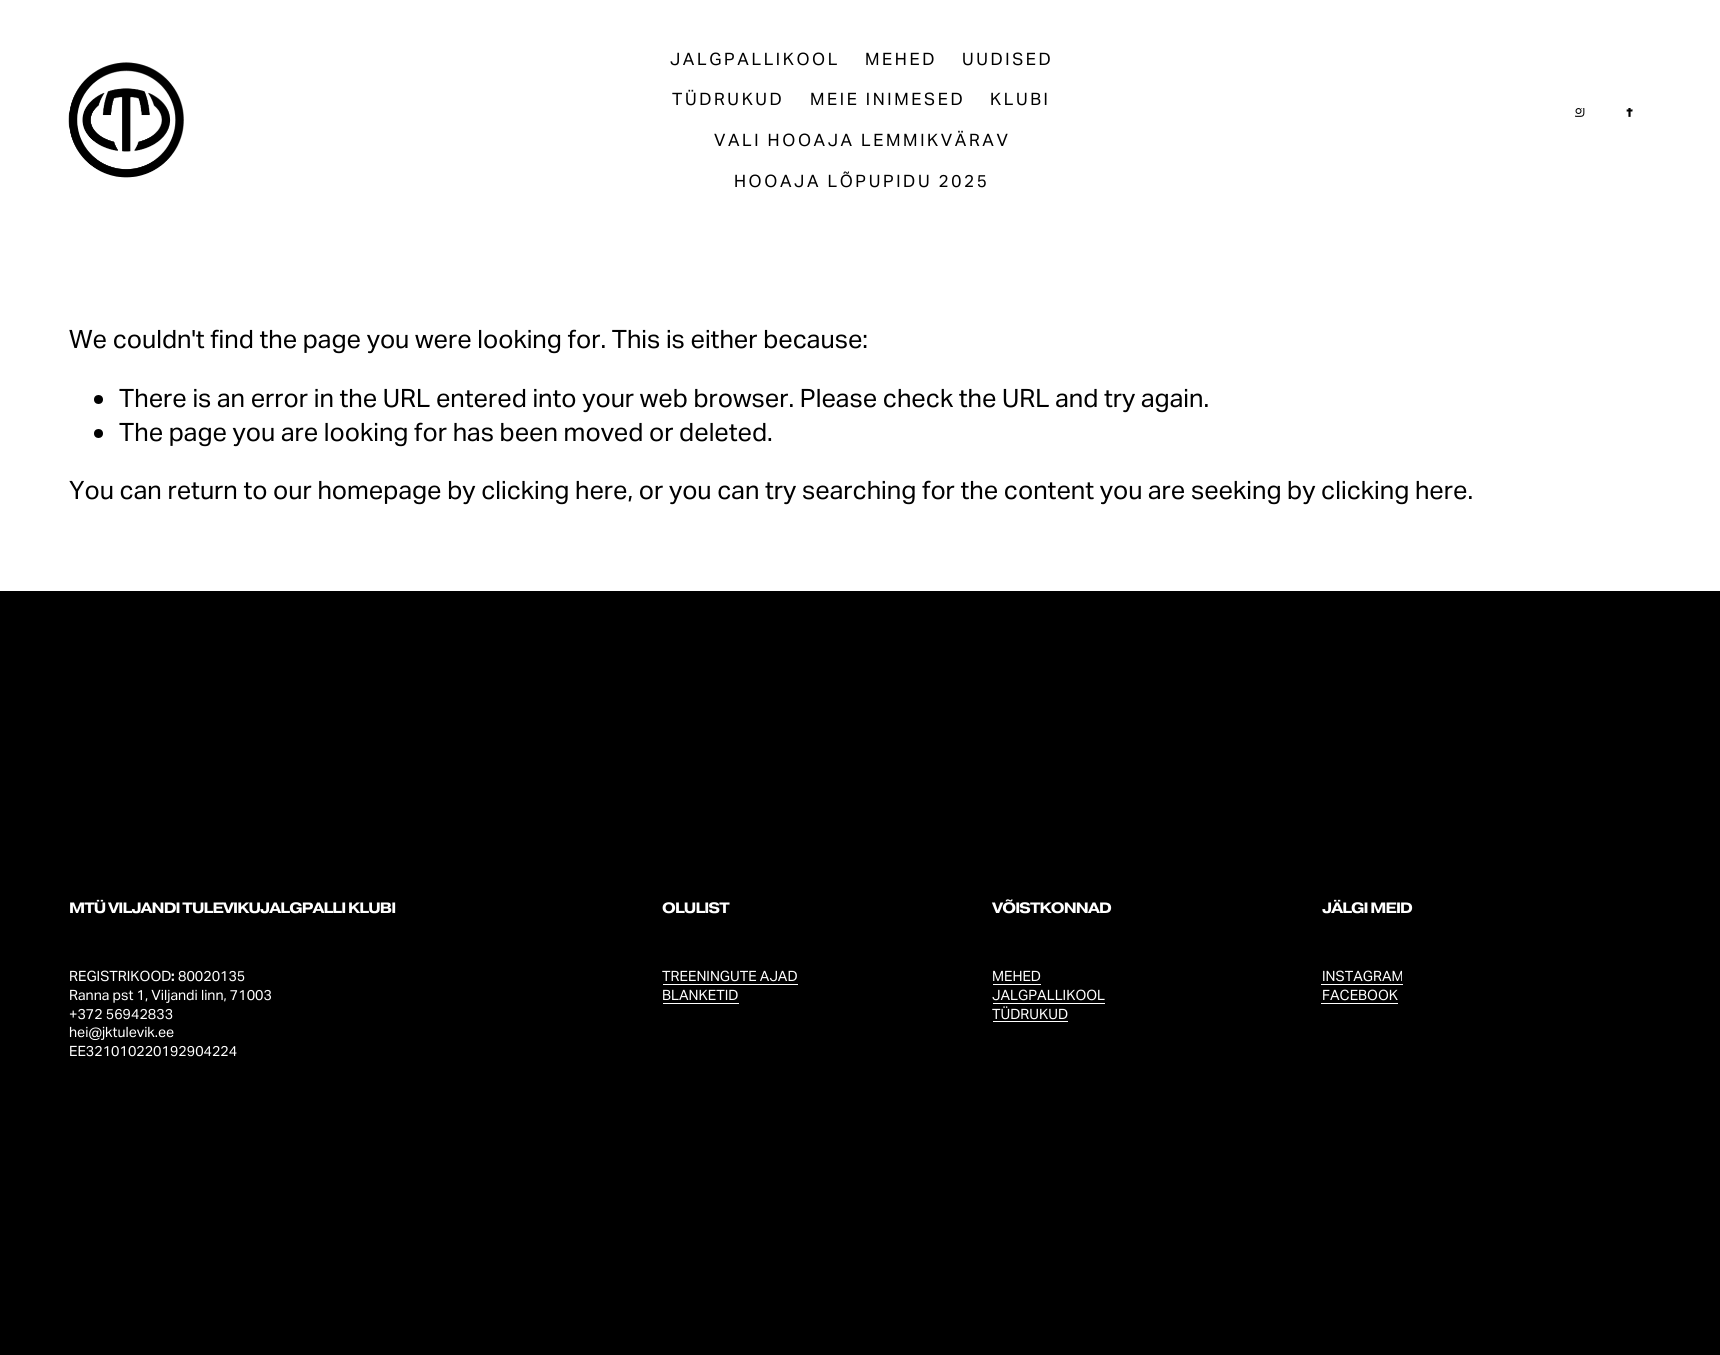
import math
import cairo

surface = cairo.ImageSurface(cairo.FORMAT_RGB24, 1720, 1355)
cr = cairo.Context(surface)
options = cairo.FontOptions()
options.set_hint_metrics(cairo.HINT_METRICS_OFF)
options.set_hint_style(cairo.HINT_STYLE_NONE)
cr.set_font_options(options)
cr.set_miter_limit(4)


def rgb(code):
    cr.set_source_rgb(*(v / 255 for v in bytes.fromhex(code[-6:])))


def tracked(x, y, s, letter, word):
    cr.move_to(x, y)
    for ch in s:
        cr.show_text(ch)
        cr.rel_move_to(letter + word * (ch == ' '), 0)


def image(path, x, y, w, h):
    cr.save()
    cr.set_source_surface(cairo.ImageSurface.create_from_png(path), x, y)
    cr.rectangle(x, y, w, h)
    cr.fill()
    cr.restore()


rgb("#ffffff")
cr.paint()
image("img/1.png", 68, 62, 116, 116)
image("img/2.png", 1575, 108, 10, 9)
image("img/3.png", 1626, 108, 7, 9)
rgb("#000000")
cr.arc(98.5, 399.5, 4.5, 0, 2 * math.pi)
cr.fill()
cr.arc(98.5, 433.5, 4.5, 0, 2 * math.pi)
cr.fill()
for x, y, w, h, color in [
    (0, 591, 1720, 764, "#000000"),
    (663, 984, 135, 1, "#ffffff"),
    (663, 1003, 76, 1, "#ffffff"),
    (993, 984, 48, 1, "#ffffff"),
    (993, 1003, 112, 1, "#ffffff"),
    (993, 1021, 75, 1, "#ffffff"),
    (1321, 984, 82, 1, "#ffffff"),
    (1321, 1003, 77, 1, "#ffffff"),
]:
    rgb(color)
    cr.rectangle(x, y, w, h)
    cr.fill()
cr.select_font_face("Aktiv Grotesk")
cr.set_font_size(17.1)
rgb("#000000")
for x, y, s in [
    (670, 65, "JALGPALLIKOOL"),
    (865, 65, "MEHED"),
    (962, 65, "UUDISED"),
    (672, 105, "TÜDRUKUD"),
    (810, 105, "MEIE INIMESED"),
    (990, 105, "KLUBI"),
    (714, 146, "VALI HOOAJA LEMMIKVÄRAV"),
    (734, 187, "HOOAJA LÕPUPIDU 2025"),
]:
    tracked(x, y, s, 2.6, 0)
cr.set_font_size(25.32)
for x, y, s in [
    (69, 348, "We couldn't find the page you were looking for. This is either because:"),
    (119, 407, "There is an error in the URL entered into your web browser. Please check the URL and try again."),
    (119, 441, "The page you are looking for has been moved or deleted."),
    (69, 499, "You can return to our homepage by clicking here, or you can try searching for the content you are seeking by clicking here."),
]:
    cr.move_to(x, y)
    cr.show_text(s)
cr.select_font_face("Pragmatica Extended", cairo.FONT_SLANT_NORMAL, cairo.FONT_WEIGHT_BOLD)
cr.set_font_size(15)
rgb("#ffffff")
for x, y, s in [
    (69, 913, "MTÜ VILJANDI TULEVIKUJALGPALLI KLUBI"),
    (662, 913, "OLULIST"),
    (992, 913, "VÕISTKONNAD"),
    (1322, 913, "JÄLGI MEID"),
]:
    tracked(x, y, s, -0.9, 0)
cr.select_font_face("Aktiv Grotesk")
cr.set_font_size(14.2)
cr.move_to(69, 981)
cr.show_text("REGISTRIKOOD")
cr.select_font_face("Aktiv Grotesk", cairo.FONT_SLANT_NORMAL, cairo.FONT_WEIGHT_BOLD)
cr.move_to(171, 981)
cr.show_text(":")
cr.select_font_face("Aktiv Grotesk")
for x, y, s in [
    (178, 981, "80020135"),
    (69, 1000, "Ranna pst 1, Viljandi linn, 71003"),
    (69, 1019, "+372 56942833"),
    (69, 1037, "hei@jktulevik.ee"),
    (69, 1056, "EE321010220192904224"),
    (662, 981, "TREENINGUTE AJAD"),
    (662, 1000, "BLANKETID"),
    (992, 981, "MEHED"),
    (992, 1000, "JALGPALLIKOOL"),
    (992, 1019, "TÜDRUKUD"),
    (1322, 981, "INSTAGRAM"),
    (1322, 1000, "FACEBOOK"),
]:
    cr.move_to(x, y)
    cr.show_text(s)
surface.write_to_png("page.png")
